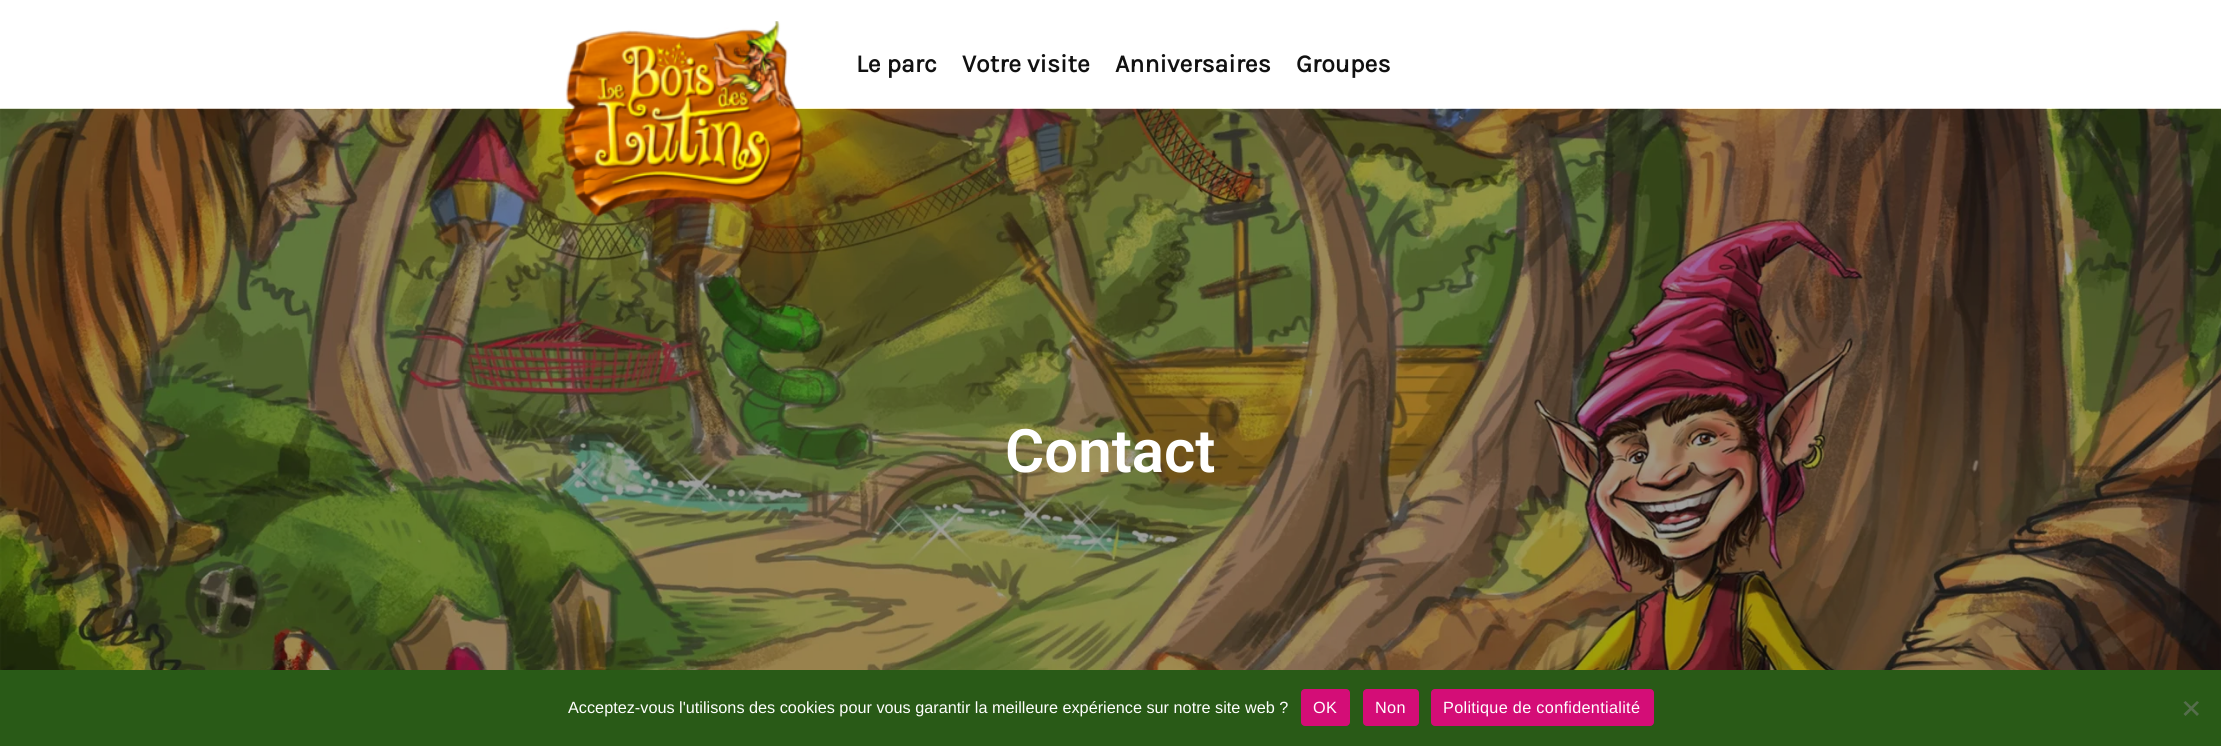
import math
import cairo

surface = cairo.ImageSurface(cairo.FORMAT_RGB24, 2221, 746)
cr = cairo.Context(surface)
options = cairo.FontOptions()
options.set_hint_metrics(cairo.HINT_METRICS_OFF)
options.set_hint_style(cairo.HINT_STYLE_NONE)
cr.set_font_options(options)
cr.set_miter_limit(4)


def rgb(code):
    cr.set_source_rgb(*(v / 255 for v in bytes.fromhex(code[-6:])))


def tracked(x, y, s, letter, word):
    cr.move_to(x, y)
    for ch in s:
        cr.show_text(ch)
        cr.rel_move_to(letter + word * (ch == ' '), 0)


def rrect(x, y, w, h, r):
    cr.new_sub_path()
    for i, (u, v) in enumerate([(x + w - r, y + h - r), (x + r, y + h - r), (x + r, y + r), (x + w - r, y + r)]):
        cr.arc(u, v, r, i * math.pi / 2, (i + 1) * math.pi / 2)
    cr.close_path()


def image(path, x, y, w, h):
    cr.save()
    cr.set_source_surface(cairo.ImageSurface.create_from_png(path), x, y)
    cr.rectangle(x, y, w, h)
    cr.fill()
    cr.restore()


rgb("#ffffff")
cr.paint()
image("img/2.png", 0, 108, 2221, 562)
image("img/1.png", 563, 21, 241, 197)
rgb("#295a17")
cr.rectangle(0, 670, 2221, 76)
cr.fill()
rgb("#d40d77")
rrect(1301, 689, 49, 37, 4)
cr.fill()
rrect(1363, 689, 56, 37, 4)
cr.fill()
rrect(1431, 689, 223, 37, 4)
cr.fill()
rgb("#556d4c")
cr.new_path()
cr.move_to(2197, 701)
cr.line_to(2199, 702.5)
cr.line_to(2185.5, 716)
cr.line_to(2183.5, 714)
cr.close_path()
cr.fill()
cr.new_path()
cr.move_to(2183.5, 702.5)
cr.line_to(2185.5, 701)
cr.line_to(2199, 714)
cr.line_to(2197, 716)
cr.close_path()
cr.fill()
cr.select_font_face("Karla", cairo.FONT_SLANT_NORMAL, cairo.FONT_WEIGHT_BOLD)
cr.set_font_size(25)
rgb("#111111")
for x, y, s in [
    (856, 72, "Le parc"),
    (962, 72, "Votre visite"),
    (1115, 72, "Anniversaires"),
    (1296, 72, "Groupes"),
]:
    cr.move_to(x, y)
    cr.show_text(s)
cr.select_font_face("Roboto SemiBold")
cr.set_font_size(60)
rgb("#ffffff")
cr.move_to(1005, 472)
cr.show_text("Contact")
cr.select_font_face("Liberation Sans")
cr.set_font_size(16.25)
cr.move_to(568, 713)
cr.show_text("Acceptez-vous l'utilisons des cookies pour vous garantir la meilleure expérience sur notre site web ?")
for x, y, s in [
    (1313, 713, "OK"),
    (1375, 713, "Non"),
    (1443, 713, "Politique de confidentialité"),
]:
    tracked(x, y, s, 0.3, 0)
surface.write_to_png("page.png")
